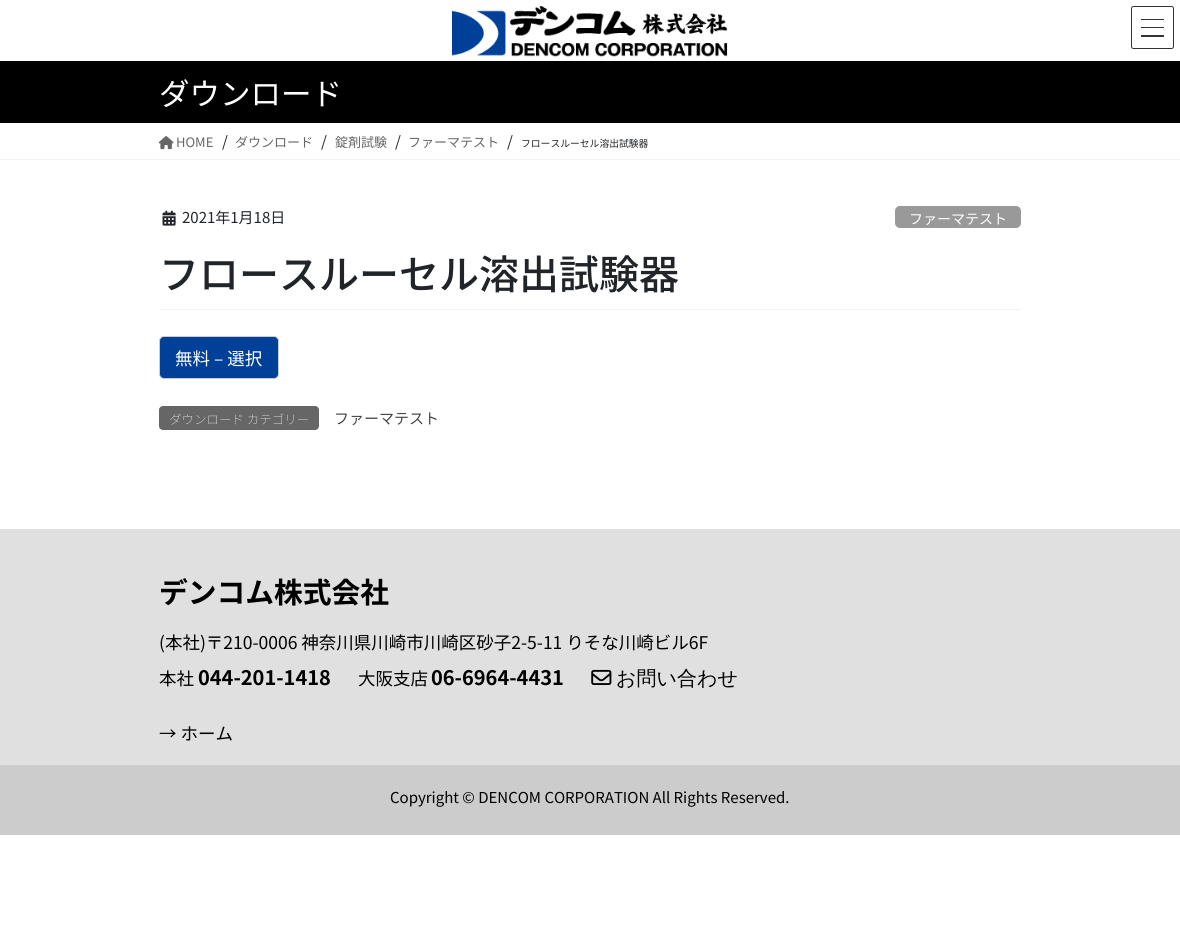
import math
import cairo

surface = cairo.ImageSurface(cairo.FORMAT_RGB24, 1180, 949)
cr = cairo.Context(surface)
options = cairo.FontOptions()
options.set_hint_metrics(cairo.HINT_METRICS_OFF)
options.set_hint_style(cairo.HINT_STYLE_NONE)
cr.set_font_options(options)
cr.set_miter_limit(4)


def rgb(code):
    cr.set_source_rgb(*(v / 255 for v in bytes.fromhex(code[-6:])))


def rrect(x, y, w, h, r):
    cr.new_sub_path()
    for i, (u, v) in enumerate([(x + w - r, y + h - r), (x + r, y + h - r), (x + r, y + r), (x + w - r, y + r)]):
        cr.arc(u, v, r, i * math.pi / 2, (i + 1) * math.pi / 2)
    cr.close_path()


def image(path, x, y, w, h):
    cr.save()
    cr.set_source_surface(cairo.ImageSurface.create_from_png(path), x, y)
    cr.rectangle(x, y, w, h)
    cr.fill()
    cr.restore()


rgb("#ffffff")
cr.paint()
image("img/1.png", 452, 6, 276, 51)
for x, y, w, h, color in [
    (1141, 19, 23, 1, "#333333"),
    (1141, 27, 23, 1, "#333333"),
    (1141, 35, 23, 2, "#333333"),
]:
    rgb(color)
    cr.rectangle(x, y, w, h)
    cr.fill()
rrect(1131.5, 6.5, 42, 42, 2)
cr.set_line_width(1)
cr.stroke()
rgb("#000000")
cr.rectangle(0, 61, 1180, 62)
cr.fill()
rgb("#f2f2f2")
cr.rectangle(0, 159, 1180, 1)
cr.fill()
image("img/2.png", 158, 136, 16, 14)
cr.rectangle(159, 309, 862, 1)
cr.fill()
image("img/3.png", 162, 210, 14, 16)
rgb("#999999")
rrect(895, 206, 126, 22, 5)
cr.fill()
rgb("#014099")
rrect(159.5, 336.5, 119, 42, 4.5)
cr.fill_preserve()
rgb("#cccccc")
cr.stroke()
rgb("#666666")
rrect(159, 406, 160, 24, 4)
cr.fill()
rgb("#e0e0e0")
cr.rectangle(0, 529, 1180, 236)
cr.fill()
image("img/4.png", 591, 669, 21, 16)
rgb("#cccccc")
cr.rectangle(0, 765, 1180, 70)
cr.fill()
cr.select_font_face("Noto Sans JP")
cr.set_font_size(30.5)
rgb("#ffffff")
cr.move_to(159, 105)
cr.show_text("ダウンロード")
cr.set_font_size(13)
rgb("#666666")
cr.move_to(176, 147)
cr.show_text("HOME")
cr.set_font_size(15)
rgb("#212529")
cr.move_to(222, 147)
cr.show_text("/")
cr.set_font_size(13)
rgb("#666666")
cr.move_to(235, 147)
cr.show_text("ダウンロード")
cr.set_font_size(15)
rgb("#212529")
cr.move_to(321, 147)
cr.show_text("/")
cr.set_font_size(13)
rgb("#666666")
cr.move_to(335, 147)
cr.show_text("錠剤試験")
cr.set_font_size(15)
rgb("#212529")
cr.move_to(395, 147)
cr.show_text("/")
cr.set_font_size(13)
rgb("#666666")
cr.move_to(408, 147)
cr.show_text("ファーマテスト")
cr.set_font_size(15)
rgb("#212529")
cr.move_to(507, 147)
cr.show_text("/")
cr.set_font_size(9.8)
cr.move_to(521, 147)
cr.show_text("フロースルーセル溶出試験器")
cr.set_font_size(15)
cr.move_to(182, 223)
cr.show_text("2021年1月18日")
cr.set_font_size(14)
rgb("#ffffff")
cr.move_to(909, 224)
cr.show_text("ファーマテスト")
cr.select_font_face("Noto Sans JP Medium")
cr.set_font_size(40)
rgb("#212529")
cr.move_to(159, 289)
cr.show_text("フロースルーセル溶出試験器")
cr.select_font_face("Noto Sans JP")
cr.set_font_size(17.5)
rgb("#ffffff")
cr.move_to(175, 365)
cr.show_text("無料 – 選択")
cr.select_font_face("Noto Sans JP Thin")
cr.set_font_size(12.5)
cr.move_to(169, 424)
cr.show_text("ダウンロード カテゴリー")
cr.select_font_face("Noto Sans JP")
cr.set_font_size(15)
rgb("#464646")
cr.move_to(334, 424)
cr.show_text("ファーマテスト")
cr.select_font_face("Noto Sans JP", cairo.FONT_SLANT_NORMAL, cairo.FONT_WEIGHT_BOLD)
cr.set_font_size(28.75)
rgb("#000000")
cr.move_to(159, 603)
cr.show_text("デンコム株式会社")
cr.select_font_face("Noto Sans JP")
cr.set_font_size(17.5)
cr.move_to(159, 649)
cr.show_text("(本社)〒210-0006 神奈川県川崎市川崎区砂子2-5-11 りそな川崎ビル6F")
cr.move_to(159, 685)
cr.show_text("本社")
cr.select_font_face("Noto Sans JP", cairo.FONT_SLANT_NORMAL, cairo.FONT_WEIGHT_BOLD)
cr.set_font_size(20)
cr.move_to(198, 685)
cr.show_text("044-201-1418")
cr.select_font_face("Noto Sans JP")
cr.set_font_size(17.5)
cr.move_to(358, 685)
cr.show_text("大阪支店")
cr.select_font_face("Noto Sans JP", cairo.FONT_SLANT_NORMAL, cairo.FONT_WEIGHT_BOLD)
cr.set_font_size(20)
cr.move_to(431, 685)
cr.show_text("06-6964-4431")
cr.select_font_face("WenQuanYi Zen Hei Medium")
cr.move_to(616, 685)
cr.show_text("お問い合わせ")
cr.select_font_face("Noto Sans JP")
cr.set_font_size(17.5)
cr.move_to(159, 740)
cr.show_text("→ ホーム")
cr.set_font_size(15)
cr.move_to(390, 803)
cr.show_text("Copyright © DENCOM CORPORATION All Rights Reserved.")
surface.write_to_png("page.png")
